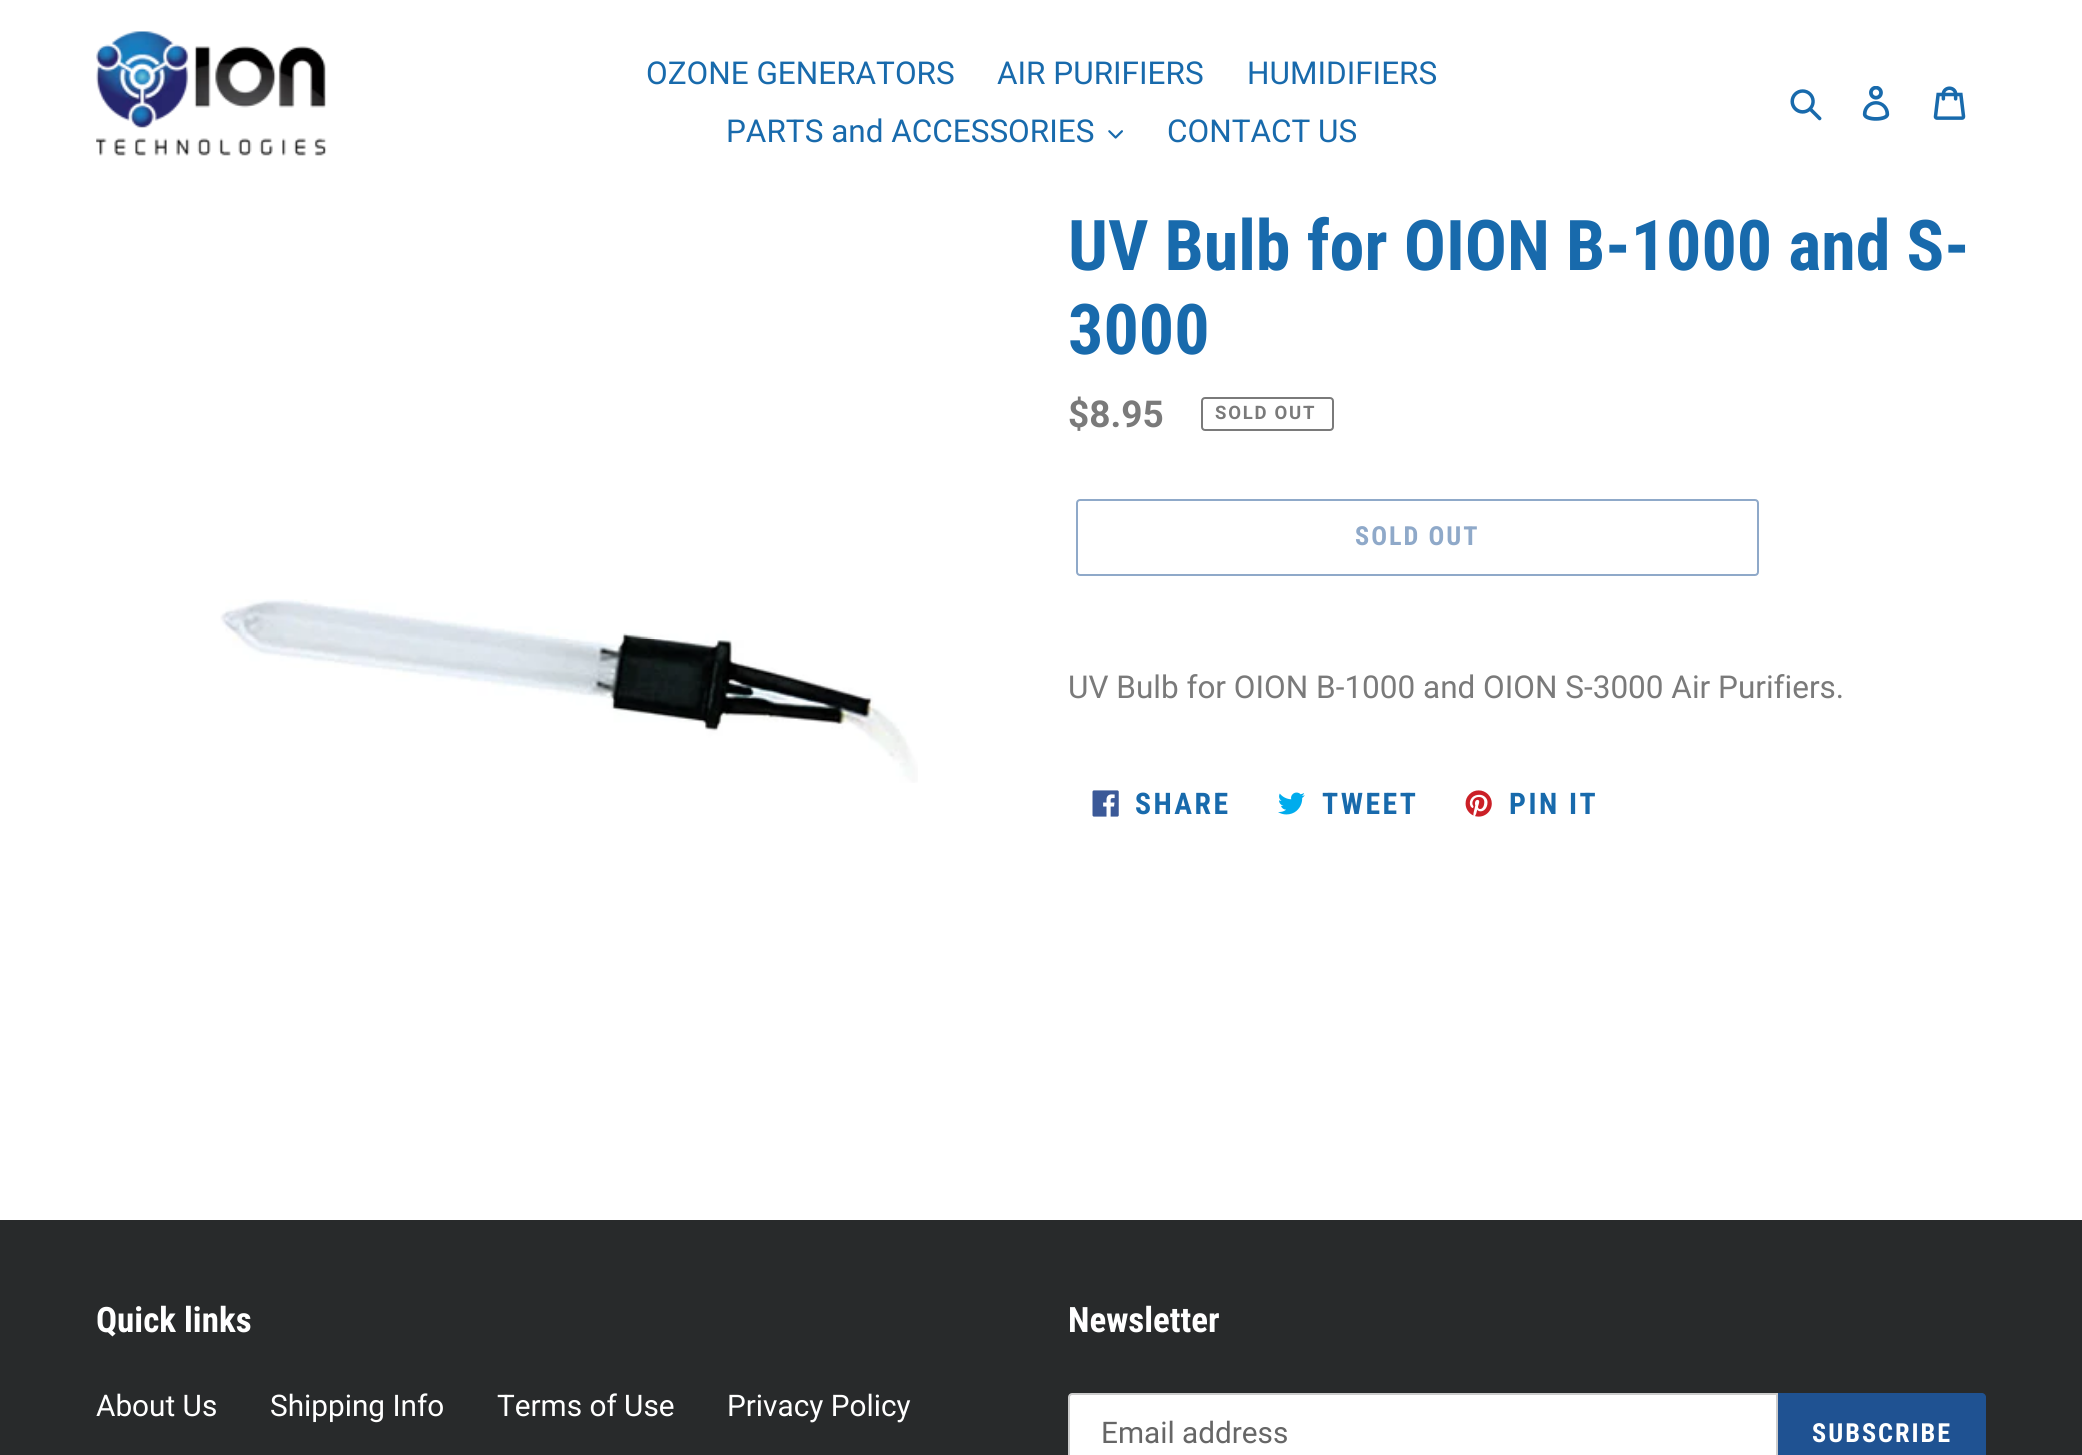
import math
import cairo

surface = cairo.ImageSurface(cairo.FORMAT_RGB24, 2082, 1455)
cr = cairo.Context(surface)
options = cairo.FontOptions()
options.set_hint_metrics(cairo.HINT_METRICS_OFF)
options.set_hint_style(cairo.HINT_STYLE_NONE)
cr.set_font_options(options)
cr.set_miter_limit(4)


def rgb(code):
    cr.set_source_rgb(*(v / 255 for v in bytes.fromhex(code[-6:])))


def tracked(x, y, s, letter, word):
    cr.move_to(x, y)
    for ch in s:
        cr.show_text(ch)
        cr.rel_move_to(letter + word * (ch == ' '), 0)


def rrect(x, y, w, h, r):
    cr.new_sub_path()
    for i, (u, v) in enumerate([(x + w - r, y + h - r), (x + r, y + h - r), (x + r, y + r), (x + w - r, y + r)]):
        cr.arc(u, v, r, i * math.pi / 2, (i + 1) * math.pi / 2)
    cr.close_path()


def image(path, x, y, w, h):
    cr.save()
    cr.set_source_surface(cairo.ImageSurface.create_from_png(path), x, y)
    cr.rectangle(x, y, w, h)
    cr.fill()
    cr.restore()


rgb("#ffffff")
cr.paint()
image("img/1.png", 96, 31, 231, 125)
image("img/2.png", 1108, 130, 15, 9)
image("img/3.png", 1790, 89, 32, 32)
image("img/4.png", 1862, 86, 28, 35)
image("img/5.png", 1933, 86, 33, 34)
image("img/6.png", 220, 599, 698, 184)
rrect(1202, 398, 131, 32, 3)
rgb("#7a7a7a")
cr.stroke()
rrect(1077, 500, 681, 75, 3)
rgb("#8fa9c9")
cr.stroke()
image("img/7.png", 1092, 790, 27, 27)
image("img/8.png", 1278, 792, 27, 23)
image("img/9.png", 1465, 790, 27, 27)
rgb("#282a2b")
cr.rectangle(0, 1220, 2082, 235)
cr.fill()
rgb("#ffffff")
cr.new_path()
cr.move_to(1072, 1394)
cr.line_to(1777, 1394)
cr.line_to(1777, 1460)
cr.line_to(1072, 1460)
cr.curve_to(1070.5, 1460, 1069, 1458.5, 1069, 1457)
cr.line_to(1069, 1397)
cr.curve_to(1069, 1395.5, 1070.5, 1394, 1072, 1394)
cr.close_path()
cr.fill_preserve()
rgb("#cccccc")
cr.stroke()
rgb("#1f5292")
cr.new_path()
cr.move_to(1778, 1393)
cr.line_to(1982, 1393)
cr.curve_to(1984, 1393, 1986, 1395, 1986, 1397)
cr.line_to(1986, 1455)
cr.curve_to(1986, 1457, 1984, 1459, 1982, 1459)
cr.line_to(1778, 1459)
cr.close_path()
cr.fill()
cr.select_font_face("Roboto")
cr.set_font_size(31.5)
rgb("#186aac")
for x, y, s in [
    (646, 84, "OZONE GENERATORS"),
    (997, 84, "AIR PURIFIERS"),
    (1247, 84, "HUMIDIFIERS"),
    (726, 142, "PARTS and ACCESSORIES"),
    (1167, 142, "CONTACT US"),
]:
    cr.move_to(x, y)
    cr.show_text(s)
cr.select_font_face("Roboto Condensed", cairo.FONT_SLANT_NORMAL, cairo.FONT_WEIGHT_BOLD)
cr.set_font_size(70)
cr.move_to(1068, 270)
cr.show_text("UV Bulb for OION B-1000 and S-")
cr.move_to(1068, 354)
cr.show_text("3000")
cr.select_font_face("Roboto", cairo.FONT_SLANT_NORMAL, cairo.FONT_WEIGHT_BOLD)
cr.set_font_size(37)
rgb("#7a7a7a")
cr.move_to(1068, 427)
cr.show_text("$8.95")
cr.set_font_size(18.5)
tracked(1215, 419, "SOLD OUT", 1.75, 0)
cr.select_font_face("Roboto Condensed", cairo.FONT_SLANT_NORMAL, cairo.FONT_WEIGHT_BOLD)
cr.set_font_size(26.25)
rgb("#8fa9c9")
tracked(1355, 545, "SOLD OUT", 2, 0)
cr.select_font_face("Roboto")
cr.set_font_size(31.5)
rgb("#7a7a7a")
cr.move_to(1068, 698)
cr.show_text("UV Bulb for OION B-1000 and OION S-3000 Air Purifiers.")
cr.select_font_face("Roboto Condensed", cairo.FONT_SLANT_NORMAL, cairo.FONT_WEIGHT_BOLD)
cr.set_font_size(29.75)
rgb("#186aac")
for x, y, s in [
    (1135, 814, "SHARE"),
    (1322, 814, "TWEET"),
    (1509, 814, "PIN IT"),
]:
    tracked(x, y, s, 2.5, 0)
cr.set_font_size(35)
rgb("#ffffff")
cr.move_to(96, 1332)
cr.show_text("Quick links")
cr.select_font_face("Roboto")
cr.set_font_size(29.75)
for x, y, s in [
    (96, 1416, "About Us"),
    (270, 1416, "Shipping Info"),
    (497, 1416, "Terms of Use"),
    (727, 1416, "Privacy Policy"),
]:
    cr.move_to(x, y)
    cr.show_text(s)
cr.select_font_face("Roboto Condensed", cairo.FONT_SLANT_NORMAL, cairo.FONT_WEIGHT_BOLD)
cr.set_font_size(35)
cr.move_to(1068, 1332)
cr.show_text("Newsletter")
cr.select_font_face("Roboto")
cr.set_font_size(29.75)
rgb("#666666")
cr.move_to(1101, 1443)
cr.show_text("Email address")
cr.select_font_face("Roboto Condensed", cairo.FONT_SLANT_NORMAL, cairo.FONT_WEIGHT_BOLD)
cr.set_font_size(26.25)
rgb("#ffffff")
tracked(1812, 1442, "SUBSCRIBE", 2, 0)
surface.write_to_png("page.png")
